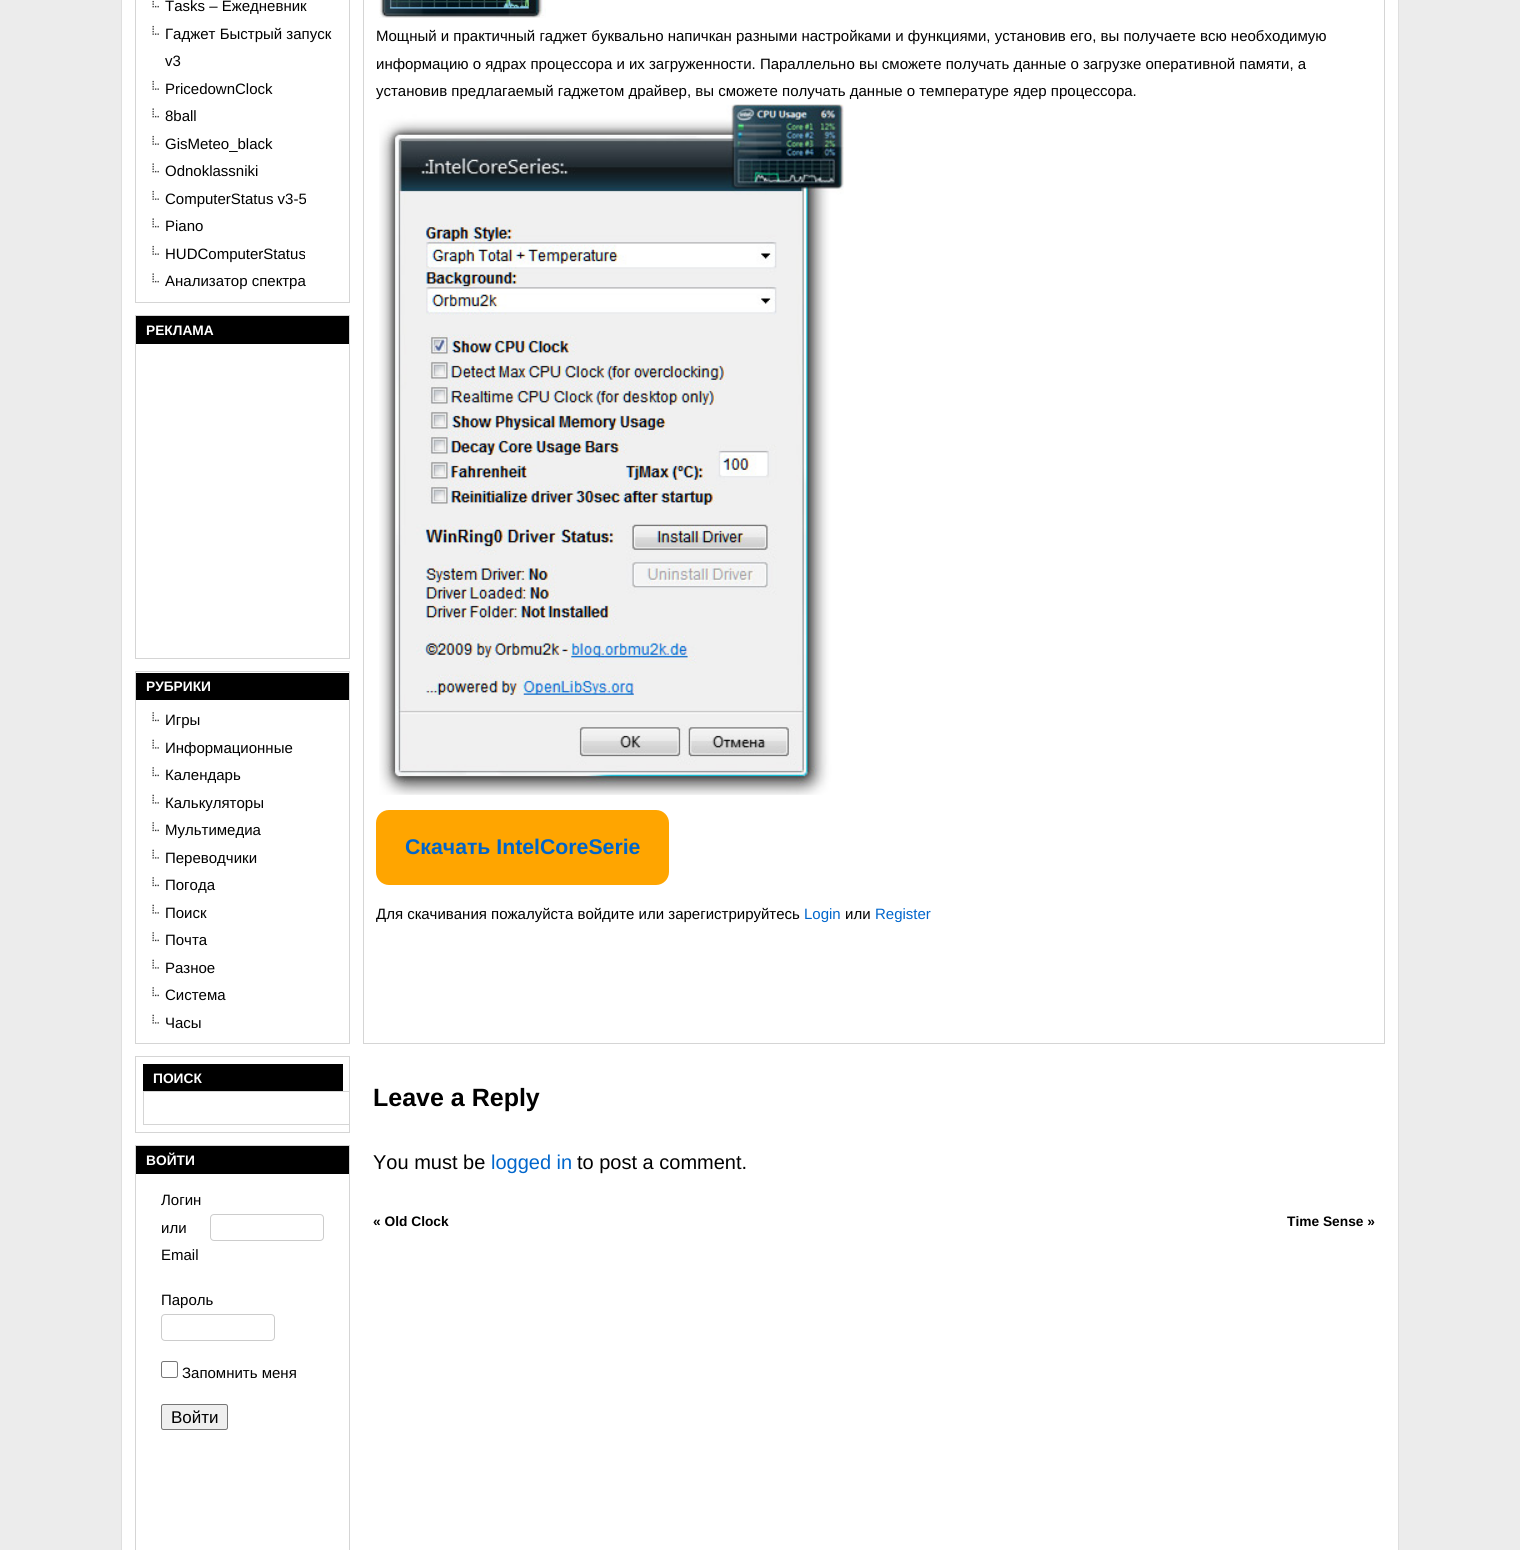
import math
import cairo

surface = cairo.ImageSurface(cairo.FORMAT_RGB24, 1520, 1550)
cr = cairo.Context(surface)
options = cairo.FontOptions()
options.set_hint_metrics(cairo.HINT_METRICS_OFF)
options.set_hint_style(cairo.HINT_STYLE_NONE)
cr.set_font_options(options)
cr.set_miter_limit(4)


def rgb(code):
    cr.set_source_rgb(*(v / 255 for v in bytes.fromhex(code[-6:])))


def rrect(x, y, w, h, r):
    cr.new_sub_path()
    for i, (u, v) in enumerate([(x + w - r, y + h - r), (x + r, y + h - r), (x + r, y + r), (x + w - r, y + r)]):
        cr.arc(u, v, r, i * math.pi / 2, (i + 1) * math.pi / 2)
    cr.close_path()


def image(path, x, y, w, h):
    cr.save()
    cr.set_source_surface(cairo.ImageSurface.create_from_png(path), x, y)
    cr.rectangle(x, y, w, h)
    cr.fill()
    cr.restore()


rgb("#ececec")
cr.paint()
rgb("#ffffff")
cr.rectangle(121.5, -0.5, 1277, 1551)
cr.fill_preserve()
rgb("#dfdfdf")
cr.set_line_width(1)
cr.stroke()
cr.rectangle(135.5, -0.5, 214, 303)
rgb("#d5d5d5")
cr.stroke()
image("img/1.png", 152, 0, 7, 8)
image("img/2.png", 152, 25, 7, 10)
image("img/2.png", 152, 80, 7, 10)
image("img/3.png", 152, 108, 7, 10)
image("img/2.png", 152, 135, 7, 10)
image("img/3.png", 152, 163, 7, 10)
image("img/4.png", 152, 190, 7, 10)
image("img/3.png", 152, 218, 7, 10)
image("img/2.png", 152, 245, 7, 10)
image("img/3.png", 152, 273, 7, 10)
cr.rectangle(135.5, 315.5, 214, 343)
cr.stroke()
rgb("#000000")
cr.rectangle(136, 316, 213, 28)
cr.fill()
cr.rectangle(135.5, 671.5, 214, 372)
rgb("#d5d5d5")
cr.stroke()
rgb("#000000")
cr.rectangle(136, 673, 213, 27)
cr.fill()
image("img/5.png", 152, 712, 7, 10)
image("img/6.png", 152, 739, 7, 10)
image("img/5.png", 152, 767, 7, 10)
image("img/6.png", 152, 794, 7, 10)
image("img/5.png", 152, 822, 7, 10)
image("img/6.png", 152, 849, 7, 10)
image("img/5.png", 152, 877, 7, 10)
image("img/6.png", 152, 904, 7, 10)
image("img/5.png", 152, 932, 7, 10)
image("img/6.png", 152, 959, 7, 10)
image("img/5.png", 152, 987, 7, 10)
image("img/6.png", 152, 1014, 7, 10)
cr.rectangle(135.5, 1056.5, 214, 76)
rgb("#d5d5d5")
cr.stroke()
rgb("#000000")
cr.rectangle(143, 1064, 200, 27)
cr.fill()
cr.save()
cr.rectangle(136, 1058, 213, 73)
cr.clip()
cr.rectangle(143.5, 1091.5, 206, 33)
rgb("#d5d5d5")
cr.stroke()
cr.restore()
cr.rectangle(135.5, 1145.5, 214, 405)
rgb("#d5d5d5")
cr.stroke()
rgb("#000000")
cr.rectangle(136, 1146, 213, 28)
cr.fill()
rrect(210.5, 1214.5, 113, 26, 3.5)
rgb("#cccccc")
cr.stroke()
rrect(161.5, 1314.5, 113, 26, 3.5)
cr.stroke()
rrect(161.5, 1361.5, 16, 16, 2)
rgb("#767676")
cr.stroke()
rgb("#efefef")
rrect(161.5, 1404.5, 66, 25, 2)
cr.fill_preserve()
rgb("#767676")
cr.stroke()
cr.rectangle(363.5, -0.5, 1021, 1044)
rgb("#d5d5d5")
cr.stroke()
image("img/7.png", 379, 0, 167, 18)
image("img/8.png", 379, 104, 465, 691)
rgb("#ffa500")
rrect(376, 810, 293, 75, 13)
cr.fill()
cr.select_font_face("Liberation Sans")
cr.set_font_size(15)
rgb("#000000")
for x, y, s in [
    (165, 11, "Tasks – Ежедневник"),
    (165, 39, "Гаджет Быстрый запуск"),
    (165, 66, "v3"),
    (165, 94, "PricedownClock"),
    (165, 121, "8ball"),
    (165, 149, "GisMeteo_black"),
    (165, 176, "Odnoklassniki"),
    (165, 204, "ComputerStatus v3-5"),
    (165, 231, "Piano"),
    (165, 259, "HUDComputerStatus"),
    (165, 286, "Анализатор спектра"),
]:
    cr.move_to(x, y)
    cr.show_text(s)
cr.select_font_face("Liberation Sans", cairo.FONT_SLANT_NORMAL, cairo.FONT_WEIGHT_BOLD)
cr.set_font_size(13.75)
rgb("#ffffff")
cr.move_to(146, 335)
cr.show_text("РЕКЛАМА")
cr.move_to(146, 691)
cr.show_text("РУБРИКИ")
cr.select_font_face("Liberation Sans")
cr.set_font_size(15)
rgb("#000000")
for x, y, s in [
    (165, 725, "Игры"),
    (165, 753, "Информационные"),
    (165, 780, "Календарь"),
    (165, 808, "Калькуляторы"),
    (165, 835, "Мультимедиа"),
    (165, 863, "Переводчики"),
    (165, 890, "Погода"),
    (165, 918, "Поиск"),
    (165, 945, "Почта"),
    (165, 973, "Разное"),
    (165, 1000, "Система"),
    (165, 1028, "Часы"),
]:
    cr.move_to(x, y)
    cr.show_text(s)
cr.select_font_face("Liberation Sans", cairo.FONT_SLANT_NORMAL, cairo.FONT_WEIGHT_BOLD)
cr.set_font_size(13.75)
rgb("#ffffff")
cr.move_to(153, 1083)
cr.show_text("ПОИСК")
cr.move_to(146, 1165)
cr.show_text("ВОЙТИ")
cr.select_font_face("Liberation Sans")
cr.set_font_size(15)
rgb("#000000")
for x, y, s in [
    (161, 1205, "Логин"),
    (161, 1233, "или"),
    (161, 1260, "Email"),
    (161, 1305, "Пароль"),
    (182, 1378, "Запомнить меня"),
]:
    cr.move_to(x, y)
    cr.show_text(s)
cr.set_font_size(17)
cr.move_to(171, 1423)
cr.show_text("Войти")
cr.set_font_size(15)
for x, y, s in [
    (376, 41, "Мощный и практичный гаджет буквально напичкан разными настройками и функциями, установив его, вы получаете всю необходимую"),
    (376, 69, "информацию о ядрах процессора и их загруженности. Параллельно вы сможете получать данные о загрузке оперативной памяти, а"),
    (376, 96, "установив предлагаемый гаджетом драйвер, вы сможете получать данные о температуре ядер процессора."),
]:
    cr.move_to(x, y)
    cr.show_text(s)
cr.select_font_face("Liberation Sans", cairo.FONT_SLANT_NORMAL, cairo.FONT_WEIGHT_BOLD)
cr.set_font_size(21.25)
rgb("#0066cc")
cr.move_to(405, 854)
cr.show_text("Скачать IntelCoreSerie")
cr.select_font_face("Liberation Sans")
cr.set_font_size(15)
rgb("#000000")
cr.move_to(376, 919)
cr.show_text("Для скачивания пожалуйста войдите или зарегистрируйтесь")
rgb("#0066cc")
cr.move_to(804, 919)
cr.show_text("Login")
rgb("#000000")
cr.move_to(845, 919)
cr.show_text("или")
rgb("#0066cc")
cr.move_to(875, 919)
cr.show_text("Register")
cr.select_font_face("Liberation Sans", cairo.FONT_SLANT_NORMAL, cairo.FONT_WEIGHT_BOLD)
cr.set_font_size(25)
rgb("#000000")
cr.move_to(373, 1106)
cr.show_text("Leave a Reply")
cr.select_font_face("Liberation Sans")
cr.set_font_size(20)
cr.move_to(373, 1169)
cr.show_text("You must be")
rgb("#0066cc")
cr.move_to(491, 1169)
cr.show_text("logged in")
rgb("#000000")
cr.move_to(577, 1169)
cr.show_text("to post a comment.")
cr.select_font_face("Liberation Sans", cairo.FONT_SLANT_NORMAL, cairo.FONT_WEIGHT_BOLD)
cr.set_font_size(13.75)
cr.move_to(373, 1226)
cr.show_text("« Old Clock")
cr.move_to(1287, 1226)
cr.show_text("Time Sense »")
surface.write_to_png("page.png")
